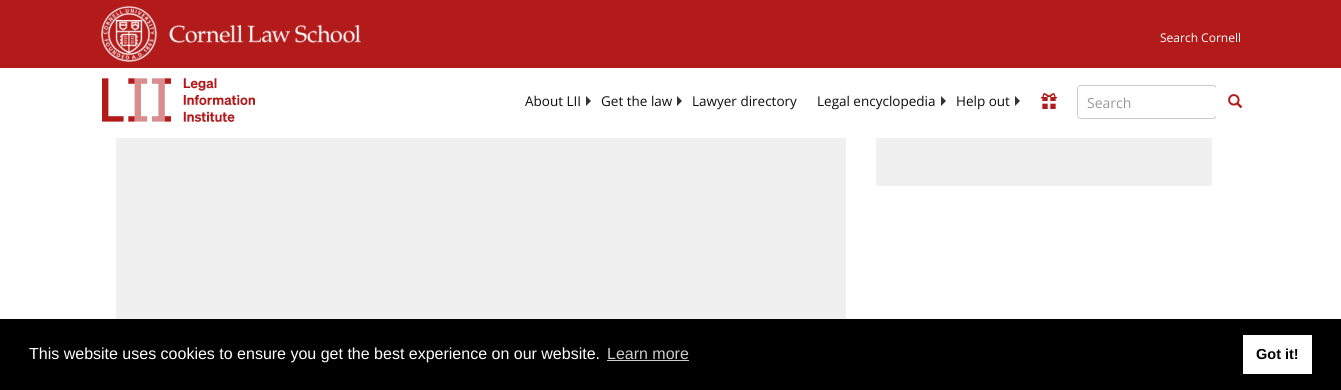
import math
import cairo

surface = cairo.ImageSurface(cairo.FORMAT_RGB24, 1341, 390)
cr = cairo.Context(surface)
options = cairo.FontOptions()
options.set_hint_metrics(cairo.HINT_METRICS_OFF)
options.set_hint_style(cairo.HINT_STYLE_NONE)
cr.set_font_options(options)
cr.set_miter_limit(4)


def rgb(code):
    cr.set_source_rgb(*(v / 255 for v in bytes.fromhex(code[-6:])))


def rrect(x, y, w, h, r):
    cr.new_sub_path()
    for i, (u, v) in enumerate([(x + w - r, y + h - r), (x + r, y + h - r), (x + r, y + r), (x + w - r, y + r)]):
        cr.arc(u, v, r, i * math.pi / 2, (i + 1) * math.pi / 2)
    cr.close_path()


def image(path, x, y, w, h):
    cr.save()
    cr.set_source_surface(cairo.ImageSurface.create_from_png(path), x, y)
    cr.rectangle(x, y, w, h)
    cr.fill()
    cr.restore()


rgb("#ffffff")
cr.paint()
rgb("#b31b1b")
cr.rectangle(0, 0, 1341, 68)
cr.fill()
image("img/1.png", 101, 6, 56, 56)
image("img/2.png", 169, 24, 192, 20)
image("img/3.png", 102, 78, 153, 44)
rgb("#333333")
cr.new_path()
cr.move_to(586, 106)
cr.line_to(586, 96)
cr.line_to(591, 101)
cr.close_path()
cr.fill()
cr.new_path()
cr.move_to(677, 106)
cr.line_to(677, 96)
cr.line_to(682, 101)
cr.close_path()
cr.fill()
cr.new_path()
cr.move_to(941, 106)
cr.line_to(941, 96)
cr.line_to(946, 101)
cr.close_path()
cr.fill()
cr.new_path()
cr.move_to(1015, 106)
cr.line_to(1015, 96)
cr.line_to(1020, 101)
cr.close_path()
cr.fill()
image("img/4.png", 1041, 93, 16, 16)
rrect(1077.5, 85.5, 139, 33, 3.5)
rgb("#cccccc")
cr.set_line_width(1)
cr.stroke()
rgb("#ffffff")
cr.new_path()
cr.move_to(1216, 86)
cr.line_to(1251, 86)
cr.curve_to(1253, 86, 1255, 88, 1255, 90)
cr.line_to(1255, 114)
cr.curve_to(1255, 116, 1253, 118, 1251, 118)
cr.line_to(1216, 118)
cr.close_path()
cr.fill()
image("img/5.png", 1228, 94, 15, 14)
for x, y, w, h, color in [
    (116, 138, 730, 181, "#f0f0f0"),
    (876, 138, 336, 48, "#f0f0f0"),
    (0, 319, 1341, 71, "#000000"),
    (607, 360, 82, 1, "#cccccc"),
    (1243, 335, 69, 39, "#ffffff"),
]:
    rgb(color)
    cr.rectangle(x, y, w, h)
    cr.fill()
cr.select_font_face("Open Sans")
cr.set_font_size(12)
cr.move_to(1160, 42)
cr.show_text("Search Cornell")
cr.set_font_size(13.5)
rgb("#0e0d0e")
for x, y, s in [
    (525, 106, "About LII"),
    (601, 106, "Get the law"),
    (692, 106, "Lawyer directory"),
    (817, 106, "Legal encyclopedia"),
    (956, 106, "Help out"),
]:
    cr.move_to(x, y)
    cr.show_text(s)
cr.set_font_size(14)
rgb("#999999")
cr.move_to(1087, 108)
cr.show_text("Search")
cr.select_font_face("Liberation Sans")
cr.set_font_size(16)
rgb("#ffffff")
cr.move_to(29, 359)
cr.show_text("This website uses cookies to ensure you get the best experience on our website.")
rgb("#cccccc")
cr.move_to(607, 359)
cr.show_text("Learn more")
cr.select_font_face("Liberation Sans", cairo.FONT_SLANT_NORMAL, cairo.FONT_WEIGHT_BOLD)
cr.set_font_size(14.5)
rgb("#000000")
cr.move_to(1256, 359)
cr.show_text("Got it!")
surface.write_to_png("page.png")
